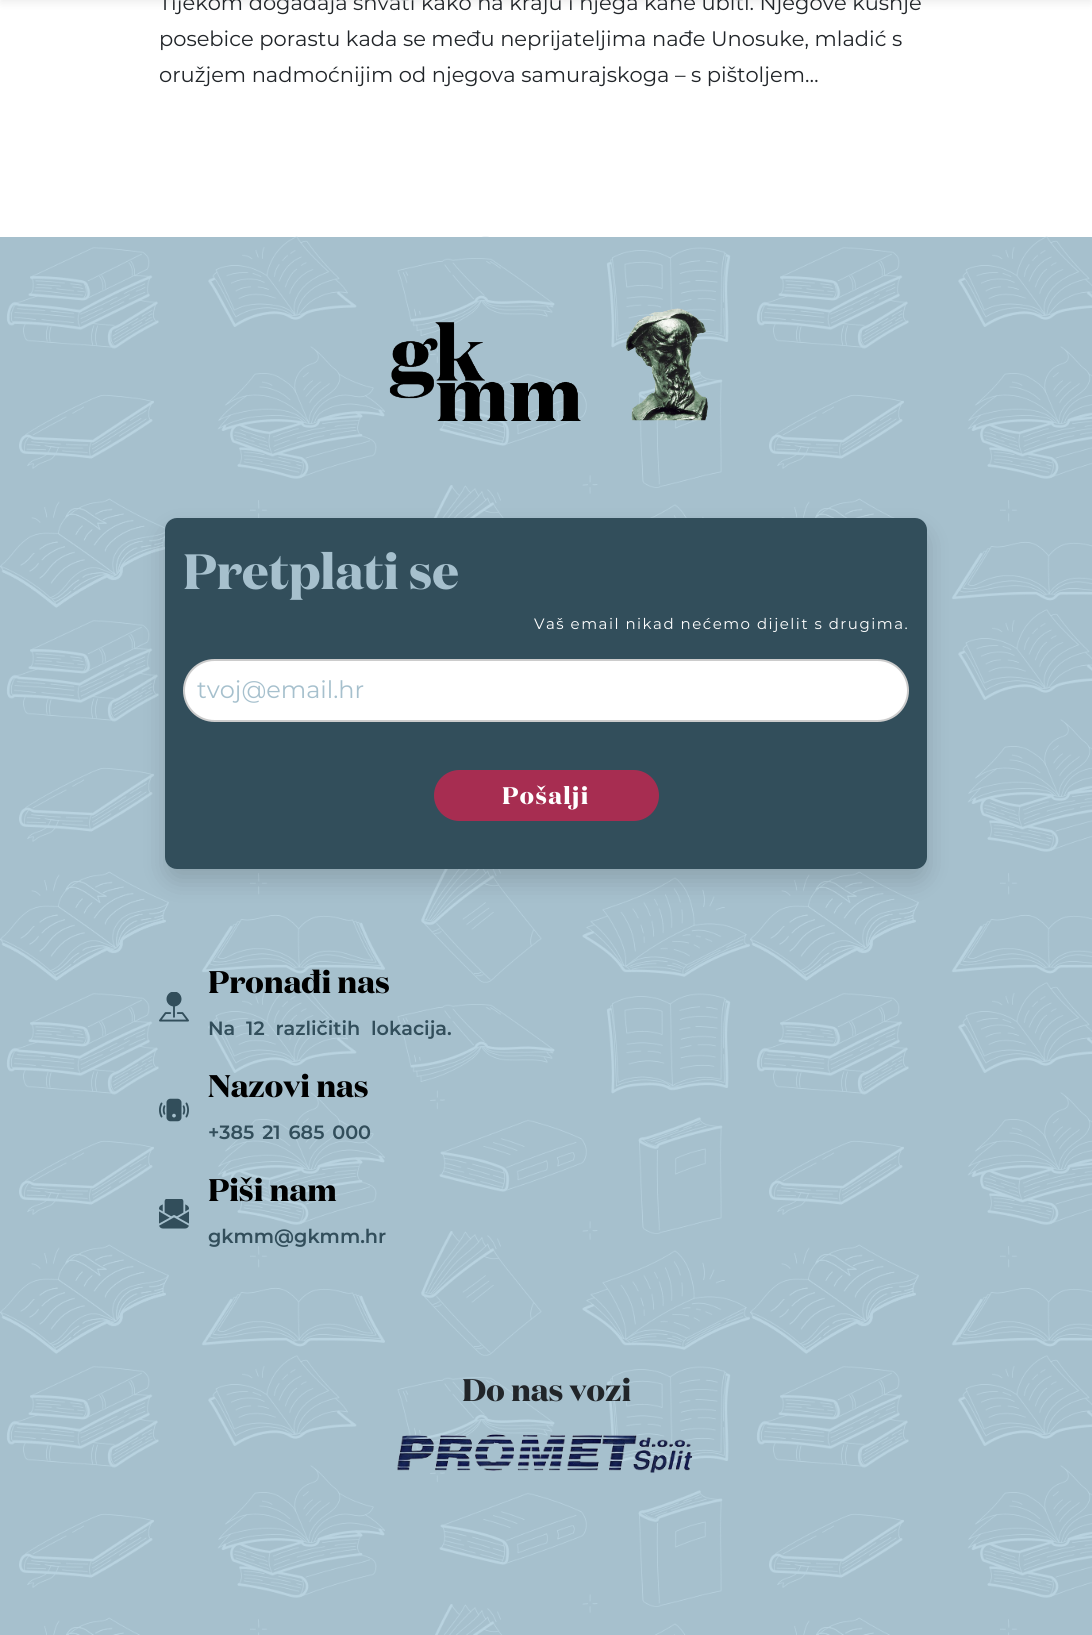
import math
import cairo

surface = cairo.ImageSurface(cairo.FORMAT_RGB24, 1092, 1635)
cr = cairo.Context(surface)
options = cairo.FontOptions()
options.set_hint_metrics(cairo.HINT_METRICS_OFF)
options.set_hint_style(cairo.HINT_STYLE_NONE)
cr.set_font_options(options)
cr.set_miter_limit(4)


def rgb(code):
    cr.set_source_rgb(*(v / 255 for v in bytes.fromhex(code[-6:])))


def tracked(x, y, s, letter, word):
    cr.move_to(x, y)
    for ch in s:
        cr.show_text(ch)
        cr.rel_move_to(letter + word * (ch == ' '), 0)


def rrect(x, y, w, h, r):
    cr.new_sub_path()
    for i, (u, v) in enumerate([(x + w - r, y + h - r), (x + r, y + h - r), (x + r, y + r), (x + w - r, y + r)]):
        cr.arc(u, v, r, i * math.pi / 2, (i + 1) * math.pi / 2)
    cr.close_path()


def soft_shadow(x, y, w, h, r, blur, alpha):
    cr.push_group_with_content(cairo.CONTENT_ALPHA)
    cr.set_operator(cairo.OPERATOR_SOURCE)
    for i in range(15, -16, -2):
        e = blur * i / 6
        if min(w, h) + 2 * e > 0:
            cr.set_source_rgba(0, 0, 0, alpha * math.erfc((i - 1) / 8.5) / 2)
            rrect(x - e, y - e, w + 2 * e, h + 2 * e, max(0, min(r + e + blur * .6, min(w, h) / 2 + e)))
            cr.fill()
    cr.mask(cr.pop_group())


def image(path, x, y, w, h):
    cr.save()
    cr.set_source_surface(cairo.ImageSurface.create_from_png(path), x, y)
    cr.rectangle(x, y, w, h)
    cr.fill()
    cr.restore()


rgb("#ffffff")
cr.paint()
rgb("#000000")
soft_shadow(0, -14, 1092, 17, 0, 4.5, 0.07)
rgb("#a6c0cd")
cr.rectangle(0, 237, 1092, 1398)
cr.fill()
image("img/2.png", 0, 236, 1092, 1399)
image("img/3.png", 389, 308, 319, 113)
rgb("#000000")
soft_shadow(165, 530, 762, 351, 12, 12, 0.15)
rgb("#324e5b")
rrect(165, 518, 762, 351, 12)
cr.fill()
rgb("#ffffff")
rrect(184, 660, 724, 61, 30.5)
cr.fill_preserve()
rgb("#cccccc")
cr.stroke()
rgb("#a72d51")
rrect(435, 771, 223, 49, 24.5)
cr.fill_preserve()
cr.stroke()
image("img/4.png", 159, 992, 30, 30)
image("img/5.png", 159, 1098, 30, 24)
image("img/6.png", 159, 1199, 30, 30)
image("img/7.png", 397, 1434, 296, 39)
cr.select_font_face("Montserrat")
cr.set_font_size(21)
rgb("#212529")
cr.move_to(159, 10)
cr.show_text("Tijekom događaja shvati kako na kraju i njega kane ubiti. Njegove kušnje")
image("img/1.png", 173, 0, 747, 2)
cr.move_to(159, 46)
cr.show_text("posebice porastu kada se među neprijateljima nađe Unosuke, mladić s")
cr.move_to(159, 82)
cr.show_text("oružjem nadmoćnijim od njegova samurajskoga – s pištoljem…")
cr.select_font_face("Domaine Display", cairo.FONT_SLANT_NORMAL, cairo.FONT_WEIGHT_BOLD)
cr.set_font_size(49.5)
rgb("#a6c0cd")
cr.move_to(183, 589)
cr.show_text("Pretplati se")
cr.select_font_face("Montserrat")
cr.set_font_size(15)
rgb("#ffffff")
tracked(534, 629, "Vaš email nikad nećemo dijelit s drugima.", 1.5, 0)
cr.set_font_size(24)
rgb("#a6c0cd")
cr.move_to(197, 698)
cr.show_text("tvoj@email.hr")
cr.select_font_face("Domaine Display", cairo.FONT_SLANT_NORMAL, cairo.FONT_WEIGHT_BOLD)
rgb("#ffffff")
tracked(502, 804, "Pošalji", 1.5, 0)
cr.set_font_size(31.25)
rgb("#000000")
cr.move_to(208, 993)
cr.show_text("Pronađi nas")
cr.select_font_face("Montserrat SemiBold")
cr.set_font_size(19.25)
rgb("#324e5b")
tracked(208, 1035, "Na 12 različitih lokacija.", 0, 5.5)
cr.select_font_face("Domaine Display", cairo.FONT_SLANT_NORMAL, cairo.FONT_WEIGHT_BOLD)
cr.set_font_size(31.25)
rgb("#000000")
cr.move_to(208, 1097)
cr.show_text("Nazovi nas")
cr.select_font_face("Montserrat SemiBold")
cr.set_font_size(19.25)
rgb("#324e5b")
tracked(208, 1139, "+385 21 685 000", 0, 2.5)
cr.select_font_face("Domaine Display", cairo.FONT_SLANT_NORMAL, cairo.FONT_WEIGHT_BOLD)
cr.set_font_size(31.25)
rgb("#000000")
cr.move_to(208, 1201)
cr.show_text("Piši nam")
cr.select_font_face("Montserrat SemiBold")
cr.set_font_size(19.25)
rgb("#324e5b")
cr.move_to(208, 1243)
cr.show_text("gkmm@gkmm.hr")
cr.select_font_face("Domaine Display", cairo.FONT_SLANT_NORMAL, cairo.FONT_WEIGHT_BOLD)
cr.set_font_size(31.25)
rgb("#212529")
cr.move_to(462, 1401)
cr.show_text("Do nas vozi")
surface.write_to_png("page.png")
